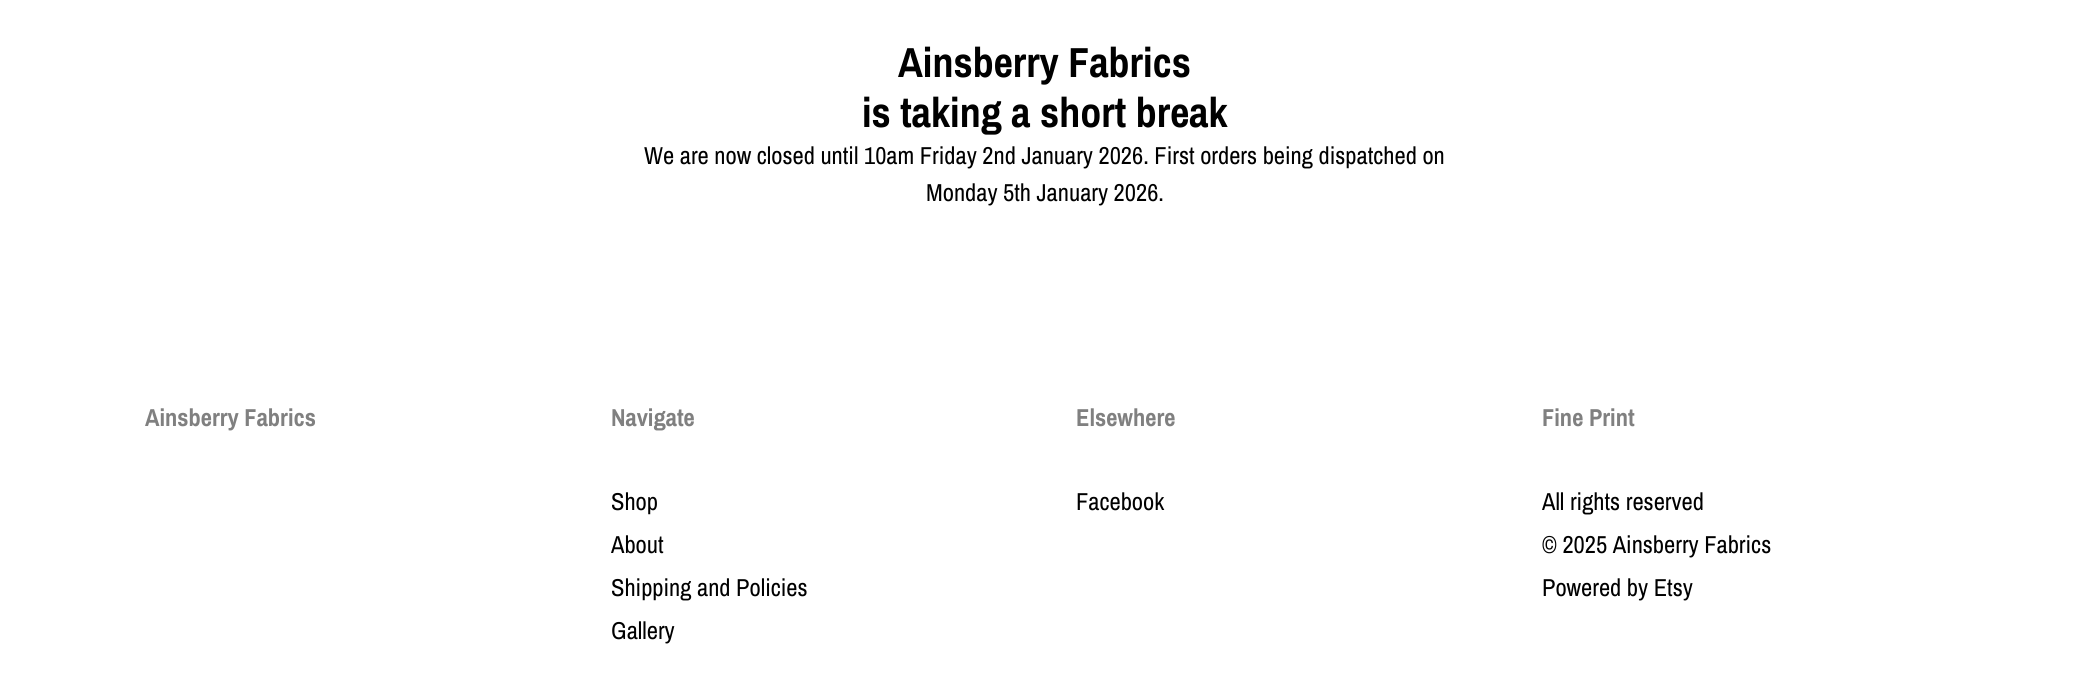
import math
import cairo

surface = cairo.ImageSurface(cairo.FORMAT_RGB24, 2089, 674)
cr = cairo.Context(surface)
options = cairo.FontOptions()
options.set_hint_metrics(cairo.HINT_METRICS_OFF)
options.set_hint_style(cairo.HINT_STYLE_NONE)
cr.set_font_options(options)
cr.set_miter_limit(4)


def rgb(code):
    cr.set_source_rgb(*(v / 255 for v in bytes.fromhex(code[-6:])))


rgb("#ffffff")
cr.paint()
cr.select_font_face("Archivo Narrow", cairo.FONT_SLANT_NORMAL, cairo.FONT_WEIGHT_BOLD)
cr.set_font_size(42)
rgb("#000000")
cr.move_to(898, 77)
cr.show_text("Ainsberry Fabrics")
cr.move_to(862, 127)
cr.show_text("is taking a short break")
cr.select_font_face("Archivo Narrow")
cr.set_font_size(24.5)
cr.move_to(644, 164)
cr.show_text("We are now closed until 10am Friday 2nd January 2026. First orders being dispatched on")
cr.move_to(926, 201)
cr.show_text("Monday 5th January 2026.")
cr.select_font_face("Archivo Narrow", cairo.FONT_SLANT_NORMAL, cairo.FONT_WEIGHT_BOLD)
rgb("#808080")
cr.move_to(145, 426)
cr.show_text("Ainsberry Fabrics")
cr.move_to(611, 426)
cr.show_text("Navigate")
cr.select_font_face("Archivo Narrow")
rgb("#000000")
for x, y, s in [
    (611, 510, "Shop"),
    (611, 553, "About"),
    (611, 596, "Shipping and Policies"),
    (611, 639, "Gallery"),
]:
    cr.move_to(x, y)
    cr.show_text(s)
cr.select_font_face("Archivo Narrow", cairo.FONT_SLANT_NORMAL, cairo.FONT_WEIGHT_BOLD)
rgb("#808080")
cr.move_to(1076, 426)
cr.show_text("Elsewhere")
cr.select_font_face("Archivo Narrow")
rgb("#000000")
cr.move_to(1076, 510)
cr.show_text("Facebook")
cr.select_font_face("Archivo Narrow", cairo.FONT_SLANT_NORMAL, cairo.FONT_WEIGHT_BOLD)
rgb("#808080")
cr.move_to(1542, 426)
cr.show_text("Fine Print")
cr.select_font_face("Archivo Narrow")
rgb("#000000")
for x, y, s in [
    (1542, 510, "All rights reserved"),
    (1542, 553, "© 2025 Ainsberry Fabrics"),
    (1542, 596, "Powered by Etsy"),
]:
    cr.move_to(x, y)
    cr.show_text(s)
surface.write_to_png("page.png")
